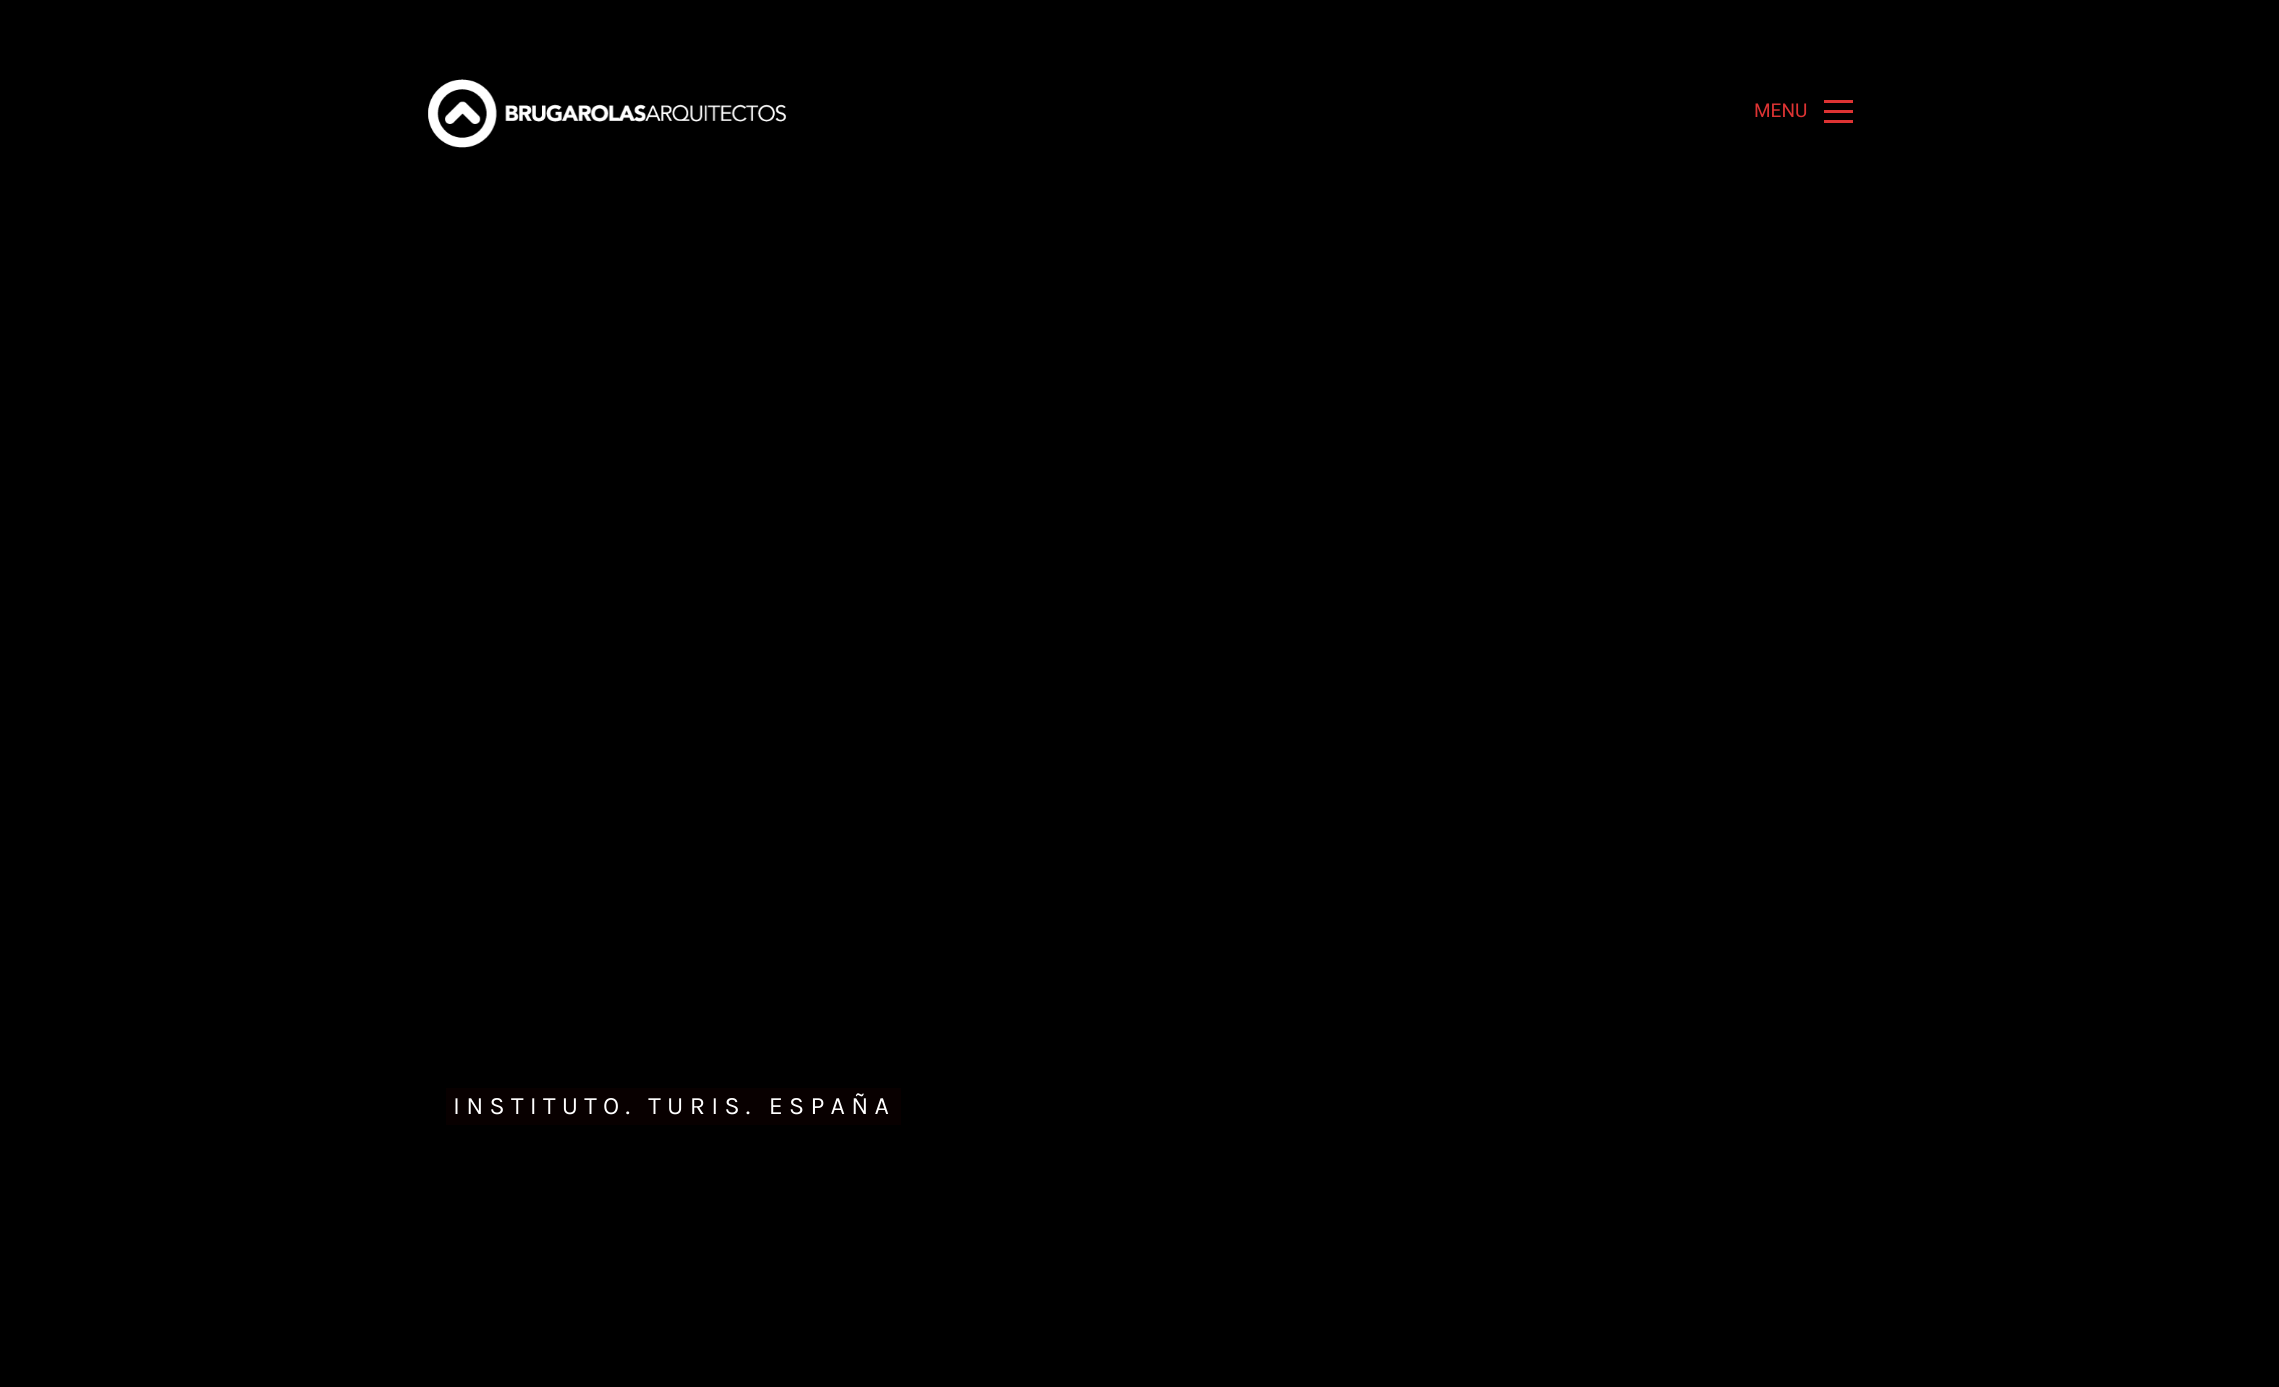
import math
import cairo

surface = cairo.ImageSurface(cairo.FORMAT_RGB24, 2279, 1387)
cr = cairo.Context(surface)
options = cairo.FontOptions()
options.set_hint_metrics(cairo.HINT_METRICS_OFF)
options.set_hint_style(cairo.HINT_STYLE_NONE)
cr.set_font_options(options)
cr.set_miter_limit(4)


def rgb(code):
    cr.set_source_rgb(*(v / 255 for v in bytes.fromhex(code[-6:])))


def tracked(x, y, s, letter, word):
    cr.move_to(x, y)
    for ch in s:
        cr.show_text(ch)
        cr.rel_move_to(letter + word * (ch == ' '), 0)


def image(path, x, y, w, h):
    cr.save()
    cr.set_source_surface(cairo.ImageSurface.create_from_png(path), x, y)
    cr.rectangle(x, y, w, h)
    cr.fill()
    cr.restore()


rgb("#000000")
cr.paint()
image("img/1.png", 428, 79, 359, 69)
for x, y, w, h, color in [
    (1824, 100, 29, 3, "#dd3333"),
    (1824, 110, 29, 3, "#dd3333"),
    (1824, 120, 29, 3, "#dd3333"),
    (446, 1088, 455, 37, "#080000"),
]:
    rgb(color)
    cr.rectangle(x, y, w, h)
    cr.fill()
cr.select_font_face("Roboto")
cr.set_font_size(19)
rgb("#dd3333")
cr.move_to(1754, 117)
cr.show_text("MENU")
cr.select_font_face("Karla")
cr.set_font_size(25)
rgb("#ffffff")
tracked(453, 1114, "INSTITUTO. TURIS. ESPAÑA", 6.25, 0)
surface.write_to_png("page.png")
